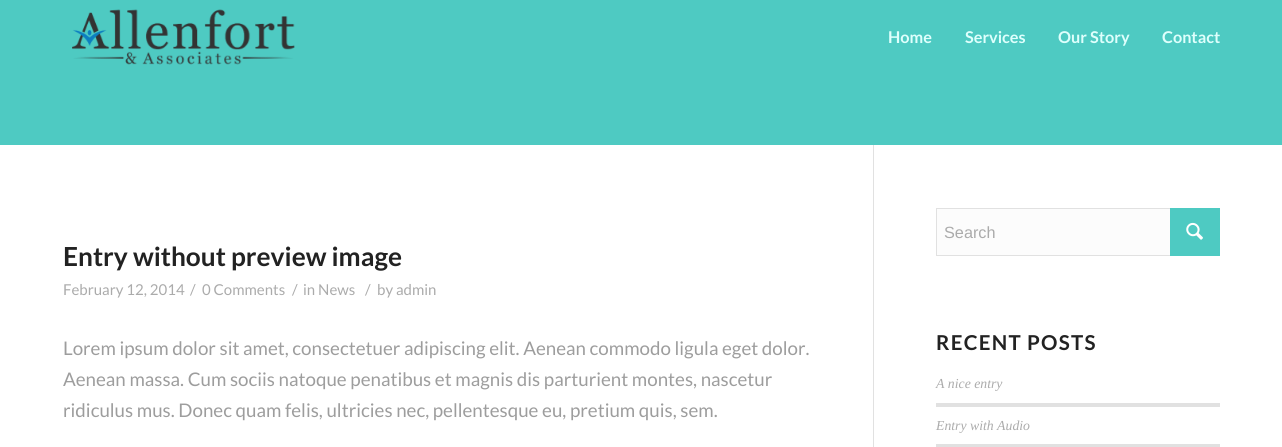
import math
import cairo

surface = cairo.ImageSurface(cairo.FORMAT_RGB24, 1282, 447)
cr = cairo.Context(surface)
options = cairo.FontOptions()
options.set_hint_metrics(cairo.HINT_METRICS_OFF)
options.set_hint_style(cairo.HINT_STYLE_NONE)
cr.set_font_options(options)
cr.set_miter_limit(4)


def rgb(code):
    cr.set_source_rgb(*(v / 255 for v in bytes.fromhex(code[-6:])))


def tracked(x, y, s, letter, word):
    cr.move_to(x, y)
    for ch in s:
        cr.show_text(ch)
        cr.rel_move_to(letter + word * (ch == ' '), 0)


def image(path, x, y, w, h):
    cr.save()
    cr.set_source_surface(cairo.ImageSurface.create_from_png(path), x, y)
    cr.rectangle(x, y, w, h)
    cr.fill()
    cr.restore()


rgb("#4ecac2")
cr.paint()
image("img/1.png", 72, 9, 223, 56)
for x, y, w, h, color in [
    (0, 145, 1282, 302, "#ffffff"),
    (873, 145, 1, 302, "#e1e1e1"),
    (937, 209, 233, 46, "#fcfcfc"),
]:
    rgb(color)
    cr.rectangle(x, y, w, h)
    cr.fill()
cr.rectangle(936.5, 208.5, 283, 47)
rgb("#e1e1e1")
cr.set_line_width(1)
cr.stroke()
rgb("#4ecac2")
cr.rectangle(1170, 208, 50, 48)
cr.fill()
image("img/2.png", 1186, 222, 17, 18)
rgb("#e1e1e1")
cr.rectangle(936, 403, 284, 4)
cr.fill()
cr.rectangle(936, 444, 284, 3)
cr.fill()
cr.select_font_face("Lato", cairo.FONT_SLANT_NORMAL, cairo.FONT_WEIGHT_BOLD)
cr.set_font_size(16.25)
rgb("#defffc")
for x, y, s in [
    (888, 43, "Home"),
    (965, 43, "Services"),
    (1058, 43, "Our Story"),
    (1162, 43, "Contact"),
]:
    cr.move_to(x, y)
    cr.show_text(s)
cr.set_font_size(26.25)
rgb("#222222")
cr.move_to(63, 266)
cr.show_text("Entry without preview image")
cr.select_font_face("Lato")
cr.set_font_size(15)
rgb("#ababab")
for x, y, s in [
    (63, 295, "February 12, 2014"),
    (190, 295, "/"),
    (202, 295, "0 Comments"),
    (292, 295, "/"),
    (303, 295, "in News"),
    (365, 295, "/"),
    (377, 295, "by admin"),
]:
    cr.move_to(x, y)
    cr.show_text(s)
cr.set_font_size(18.75)
rgb("#9d9d9d")
for x, y, s in [
    (63, 355, "Lorem ipsum dolor sit amet, consectetuer adipiscing elit. Aenean commodo ligula eget dolor."),
    (63, 386, "Aenean massa. Cum sociis natoque penatibus et magnis dis parturient montes, nascetur"),
    (63, 417, "ridiculus mus. Donec quam felis, ultricies nec, pellentesque eu, pretium quis, sem."),
]:
    cr.move_to(x, y)
    cr.show_text(s)
cr.select_font_face("Liberation Sans")
cr.set_font_size(16.25)
rgb("#ababab")
cr.move_to(944, 238)
cr.show_text("Search")
cr.select_font_face("Lato", cairo.FONT_SLANT_NORMAL, cairo.FONT_WEIGHT_BOLD)
cr.set_font_size(20.5)
rgb("#222222")
tracked(936, 350, "RECENT POSTS", 1.25, 0)
cr.select_font_face("Liberation Serif", cairo.FONT_SLANT_ITALIC)
cr.set_font_size(13.75)
rgb("#ababab")
cr.move_to(936, 388)
cr.show_text("A nice entry")
cr.move_to(936, 430)
cr.show_text("Entry with Audio")
surface.write_to_png("page.png")
